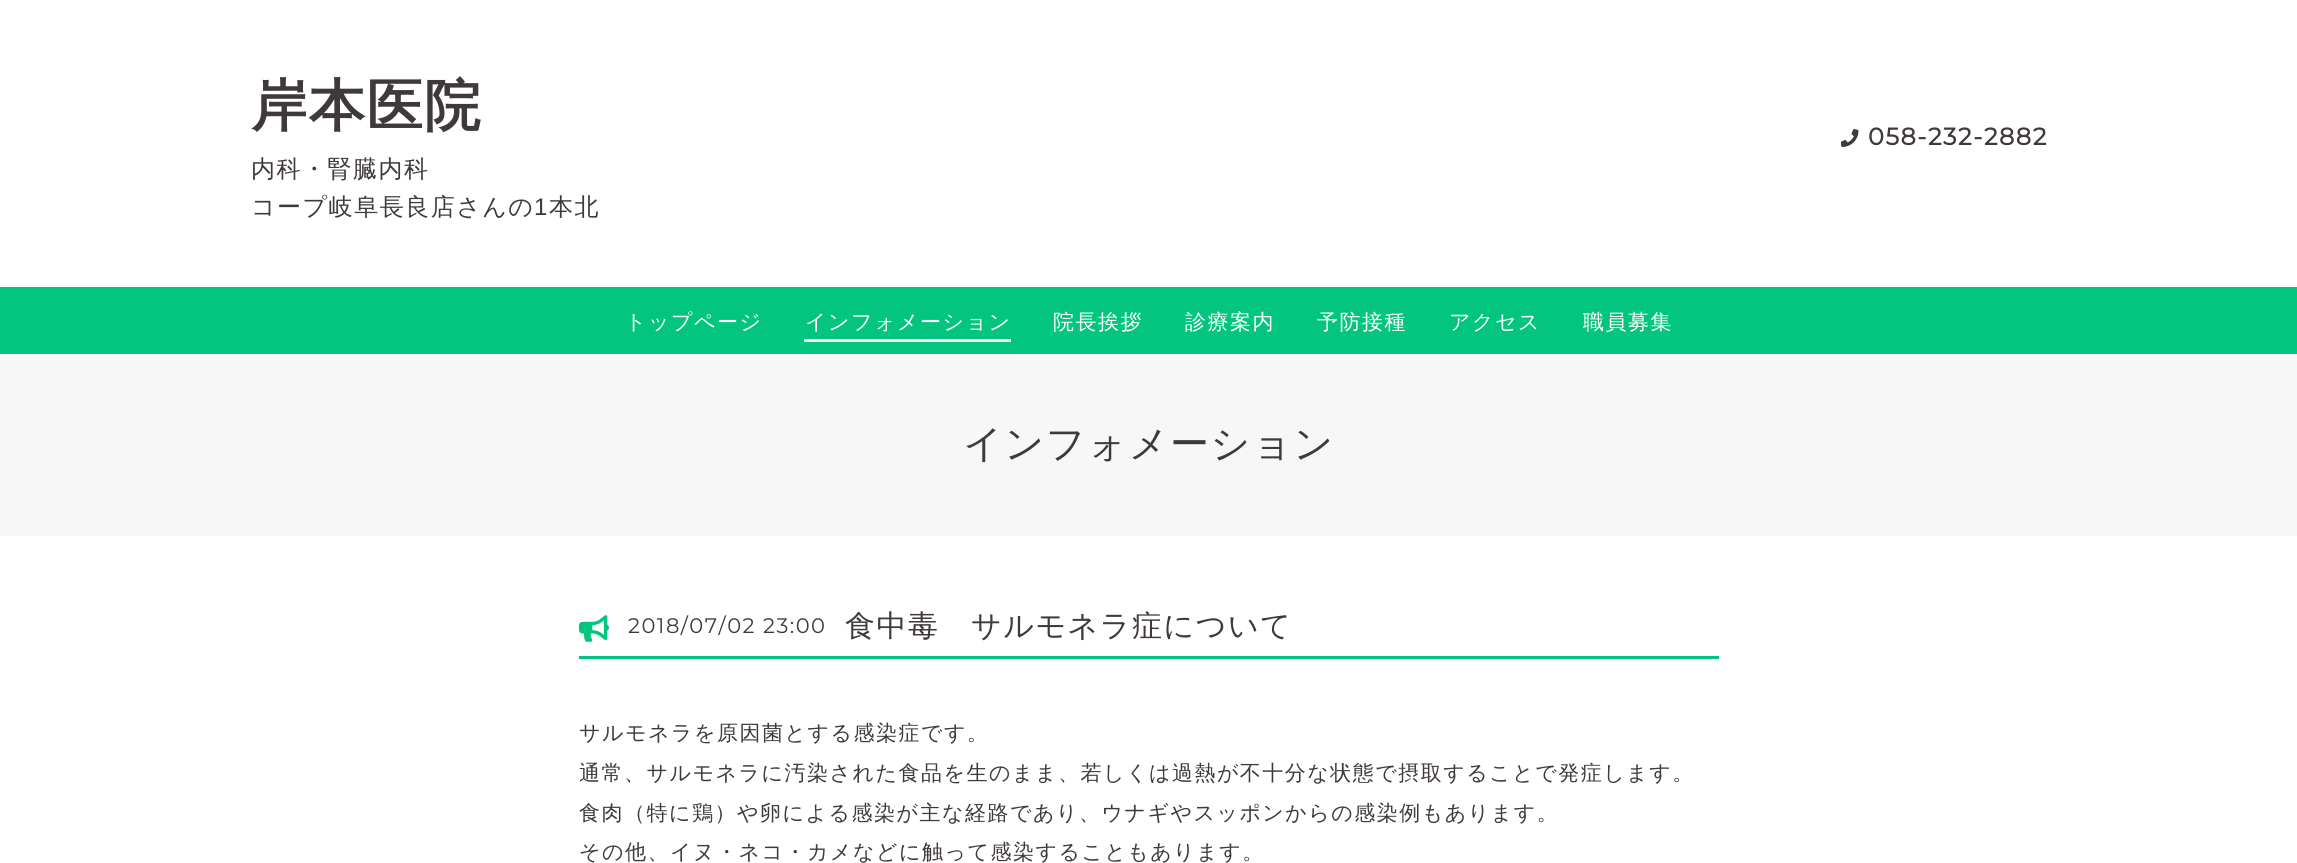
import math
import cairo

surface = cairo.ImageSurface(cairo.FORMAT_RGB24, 2297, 863)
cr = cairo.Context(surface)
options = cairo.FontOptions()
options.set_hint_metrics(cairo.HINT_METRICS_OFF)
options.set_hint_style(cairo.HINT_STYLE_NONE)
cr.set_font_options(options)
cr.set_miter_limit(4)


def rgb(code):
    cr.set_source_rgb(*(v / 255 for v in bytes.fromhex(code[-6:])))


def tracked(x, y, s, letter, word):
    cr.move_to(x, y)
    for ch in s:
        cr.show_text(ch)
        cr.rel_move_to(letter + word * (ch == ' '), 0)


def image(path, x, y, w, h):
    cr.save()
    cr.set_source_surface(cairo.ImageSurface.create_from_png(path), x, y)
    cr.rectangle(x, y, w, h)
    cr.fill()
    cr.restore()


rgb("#ffffff")
cr.paint()
image("img/1.png", 1841, 129, 18, 18)
for x, y, w, h, color in [
    (0, 287, 2297, 67, "#03c580"),
    (804, 339, 207, 3, "#ffffff"),
    (0, 354, 2297, 182, "#f7f7f7"),
    (579, 656, 1140, 3, "#03c580"),
]:
    rgb(color)
    cr.rectangle(x, y, w, h)
    cr.fill()
image("img/2.png", 579, 615, 30, 27)
cr.select_font_face("WenQuanYi Zen Hei", cairo.FONT_SLANT_NORMAL, cairo.FONT_WEIGHT_BOLD)
cr.set_font_size(56.25)
rgb("#3f3a39")
tracked(251, 125, "岸本医院", 1.5, 0)
cr.select_font_face("WenQuanYi Zen Hei Medium")
cr.set_font_size(24)
tracked(251, 177, "内科・腎臓内科", 1.5, 0)
tracked(251, 215, "コープ岐阜長良店さんの", 1.5, 0)
cr.select_font_face("Liberation Sans")
tracked(534, 215, "1", 1.5, 0)
cr.select_font_face("WenQuanYi Zen Hei Medium")
tracked(549, 215, "本北", 1.5, 0)
cr.select_font_face("Montserrat", cairo.FONT_SLANT_NORMAL, cairo.FONT_WEIGHT_BOLD)
tracked(1868, 145, "058-232-2882", 1.5, 0)
cr.select_font_face("WenQuanYi Zen Hei Medium")
cr.set_font_size(21)
rgb("#ffffff")
for x, y, s in [
    (625, 329, "トップページ"),
    (805, 329, "インフォメーション"),
    (1053, 329, "院長挨拶"),
    (1185, 329, "診療案内"),
    (1317, 329, "予防接種"),
    (1449, 329, "アクセス"),
    (1583, 329, "職員募集"),
]:
    tracked(x, y, s, 1.5, 0)
cr.set_font_size(39)
rgb("#3f3a39")
tracked(963, 457, "インフォメーション", 1.5, 0)
cr.select_font_face("Montserrat Thin")
cr.set_font_size(21)
tracked(628, 633, "2018/07/02 23:00", 1.5, 0)
cr.select_font_face("WenQuanYi Zen Hei Medium")
cr.set_font_size(30)
tracked(845, 636, "食中毒　サルモネラ症について", 1.5, 0)
cr.set_font_size(21)
for x, y, s in [
    (579, 740, "サルモネラを原因菌とする感染症です。"),
    (579, 780, "通常、サルモネラに汚染された食品を生のまま、若しくは過熱が不十分な状態で摂取することで発症します。"),
    (579, 820, "食肉（特に鶏）や卵による感染が主な経路であり、ウナギやスッポンからの感染例もあります。"),
    (579, 859, "その他、イヌ・ネコ・カメなどに触って感染することもあります。"),
]:
    tracked(x, y, s, 1.5, 0)
surface.write_to_png("page.png")
